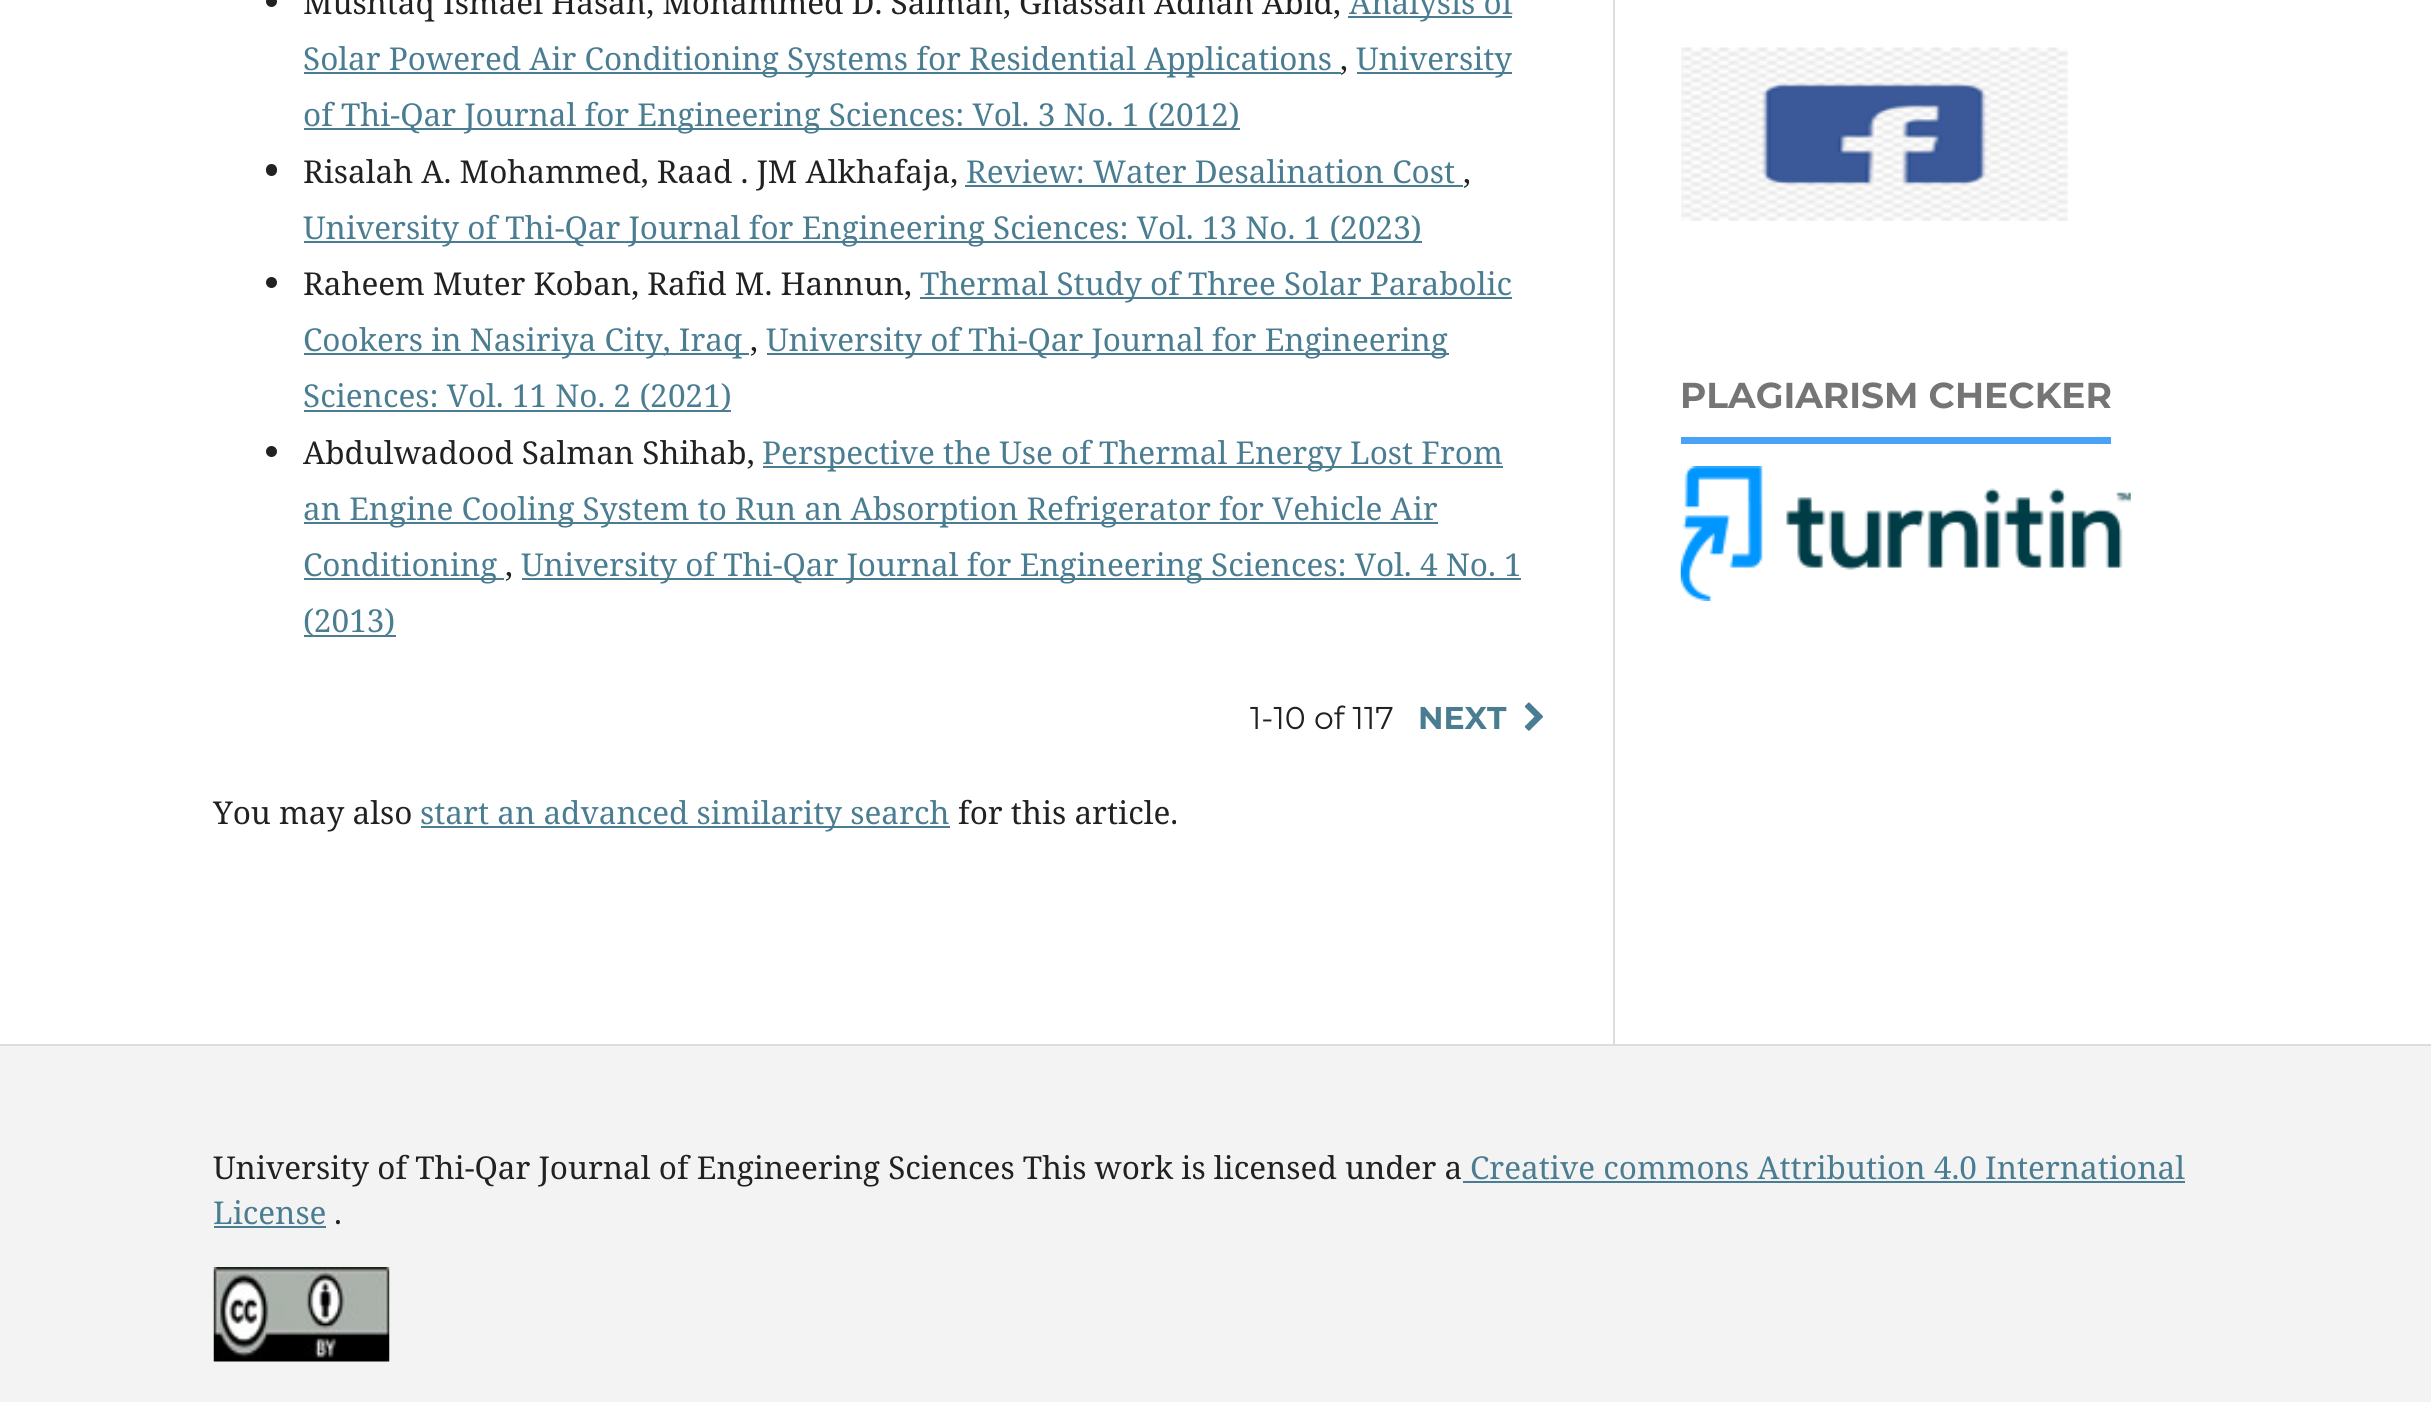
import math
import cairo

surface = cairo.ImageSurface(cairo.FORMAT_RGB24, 2431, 1402)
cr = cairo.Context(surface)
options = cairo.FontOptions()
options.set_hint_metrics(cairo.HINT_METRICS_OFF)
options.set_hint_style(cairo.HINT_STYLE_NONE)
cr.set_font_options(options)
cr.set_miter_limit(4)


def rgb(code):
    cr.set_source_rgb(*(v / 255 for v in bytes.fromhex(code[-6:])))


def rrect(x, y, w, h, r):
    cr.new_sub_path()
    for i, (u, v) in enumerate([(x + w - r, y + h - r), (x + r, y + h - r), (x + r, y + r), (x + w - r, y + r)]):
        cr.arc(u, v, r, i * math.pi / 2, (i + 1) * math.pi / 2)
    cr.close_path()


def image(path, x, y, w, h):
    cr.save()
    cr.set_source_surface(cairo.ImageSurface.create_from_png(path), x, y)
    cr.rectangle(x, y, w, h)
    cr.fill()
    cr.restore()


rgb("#ffffff")
cr.paint()
rgb("#212121")
cr.arc(271.5, 1.5, 5.5, 0, 2 * math.pi)
cr.fill()
for x, y, w, h, color in [
    (1348, 16, 164, 2, "#4b7d92"),
    (304, 72, 1037, 2, "#4b7d92"),
    (1357, 72, 155, 2, "#4b7d92"),
    (304, 128, 936, 2, "#4b7d92"),
]:
    rgb(color)
    cr.rectangle(x, y, w, h)
    cr.fill()
rgb("#212121")
rrect(266, 164, 11, 12, 5.5)
cr.fill()
rgb("#4b7d92")
cr.rectangle(965, 185, 498, 2)
cr.fill()
cr.rectangle(304, 241, 1118, 2)
cr.fill()
rgb("#212121")
cr.arc(271.5, 282.5, 5.5, 0, 2 * math.pi)
cr.fill()
for x, y, w, h, color in [
    (920, 297, 592, 2, "#4b7d92"),
    (304, 353, 445, 2, "#4b7d92"),
    (767, 353, 682, 2, "#4b7d92"),
    (304, 410, 427, 2, "#4b7d92"),
]:
    rgb(color)
    cr.rectangle(x, y, w, h)
    cr.fill()
rgb("#212121")
cr.arc(271.5, 451.5, 5.5, 0, 2 * math.pi)
cr.fill()
for x, y, w, h, color in [
    (763, 466, 740, 2, "#4b7d92"),
    (304, 522, 1134, 2, "#4b7d92"),
    (304, 578, 200, 2, "#4b7d92"),
    (522, 578, 999, 2, "#4b7d92"),
    (304, 635, 92, 2, "#4b7d92"),
]:
    rgb(color)
    cr.rectangle(x, y, w, h)
    cr.fill()
image("img/1.png", 1524, 702, 19, 29)
cr.rectangle(421, 826, 529, 2)
cr.fill()
rgb("#dddddd")
cr.rectangle(1613, 0, 2, 1044)
cr.fill()
image("img/2.png", 1681, 47, 387, 174)
rgb("#4aa2f7")
cr.rectangle(1681, 437, 430, 7)
cr.fill()
image("img/3.png", 1680, 466, 451, 135)
for x, y, w, h, color in [
    (0, 1046, 2431, 356, "#f3f3f3"),
    (0, 1044, 2431, 2, "#dddddd"),
    (1463, 1181, 722, 2, "#4b7d92"),
    (214, 1226, 112, 2, "#4b7d92"),
]:
    rgb(color)
    cr.rectangle(x, y, w, h)
    cr.fill()
image("img/4.png", 213, 1267, 177, 95)
cr.select_font_face("Noto Serif")
cr.set_font_size(31.5)
rgb("#212121")
cr.move_to(303, 14)
cr.show_text("Mushtaq Ismael Hasan, Mohammed D. Salman, Ghassan Adnan Abid,")
rgb("#4b7d92")
cr.move_to(1349, 14)
cr.show_text("Analysis of")
cr.move_to(303, 70)
cr.show_text("Solar Powered Air Conditioning Systems for Residential Applications")
rgb("#212121")
cr.move_to(1340, 70)
cr.show_text(",")
rgb("#4b7d92")
cr.move_to(1356, 70)
cr.show_text("University")
cr.move_to(303, 126)
cr.show_text("of Thi-Qar Journal for Engineering Sciences: Vol. 3 No. 1 (2012)")
rgb("#212121")
cr.move_to(303, 183)
cr.show_text("Risalah A. Mohammed, Raad . JM Alkhafaja,")
rgb("#4b7d92")
cr.move_to(966, 183)
cr.show_text("Review: Water Desalination Cost")
rgb("#212121")
cr.move_to(1463, 183)
cr.show_text(",")
rgb("#4b7d92")
cr.move_to(303, 239)
cr.show_text("University of Thi-Qar Journal for Engineering Sciences: Vol. 13 No. 1 (2023)")
rgb("#212121")
cr.move_to(303, 295)
cr.show_text("Raheem Muter Koban, Rafid M. Hannun,")
rgb("#4b7d92")
cr.move_to(920, 295)
cr.show_text("Thermal Study of Three Solar Parabolic")
cr.move_to(303, 351)
cr.show_text("Cookers in Nasiriya City, Iraq")
rgb("#212121")
cr.move_to(750, 351)
cr.show_text(",")
rgb("#4b7d92")
cr.move_to(766, 351)
cr.show_text("University of Thi-Qar Journal for Engineering")
cr.move_to(303, 407)
cr.show_text("Sciences: Vol. 11 No. 2 (2021)")
rgb("#212121")
cr.move_to(303, 464)
cr.show_text("Abdulwadood Salman Shihab,")
rgb("#4b7d92")
for x, y, s in [
    (762, 464, "Perspective the Use of Thermal Energy Lost From"),
    (303, 520, "an Engine Cooling System to Run an Absorption Refrigerator for Vehicle Air"),
    (303, 576, "Conditioning"),
]:
    cr.move_to(x, y)
    cr.show_text(s)
rgb("#212121")
cr.move_to(505, 576)
cr.show_text(",")
rgb("#4b7d92")
cr.move_to(521, 576)
cr.show_text("University of Thi-Qar Journal for Engineering Sciences: Vol. 4 No. 1")
cr.move_to(303, 632)
cr.show_text("(2013)")
cr.select_font_face("Montserrat")
rgb("#212121")
cr.move_to(1250, 729)
cr.show_text("1-10 of 117")
cr.select_font_face("Montserrat", cairo.FONT_SLANT_NORMAL, cairo.FONT_WEIGHT_BOLD)
rgb("#4b7d92")
cr.move_to(1418, 729)
cr.show_text("NEXT")
cr.select_font_face("Noto Serif")
rgb("#212121")
cr.move_to(213, 824)
cr.show_text("You may also")
rgb("#4b7d92")
cr.move_to(420, 824)
cr.show_text("start an advanced similarity search")
rgb("#212121")
cr.move_to(958, 824)
cr.show_text("for this article.")
cr.select_font_face("Montserrat", cairo.FONT_SLANT_NORMAL, cairo.FONT_WEIGHT_BOLD)
cr.set_font_size(36)
rgb("#757575")
cr.move_to(1680, 408)
cr.show_text("PLAGIARISM CHECKER")
cr.select_font_face("Noto Serif")
cr.set_font_size(31.5)
rgb("#212121")
cr.move_to(213, 1179)
cr.show_text("University of Thi-Qar Journal of Engineering Sciences This work is licensed under a")
rgb("#4b7d92")
cr.move_to(1470, 1179)
cr.show_text("Creative commons Attribution 4.0 International")
cr.move_to(213, 1224)
cr.show_text("License")
rgb("#212121")
cr.move_to(334, 1224)
cr.show_text(".")
surface.write_to_png("page.png")
